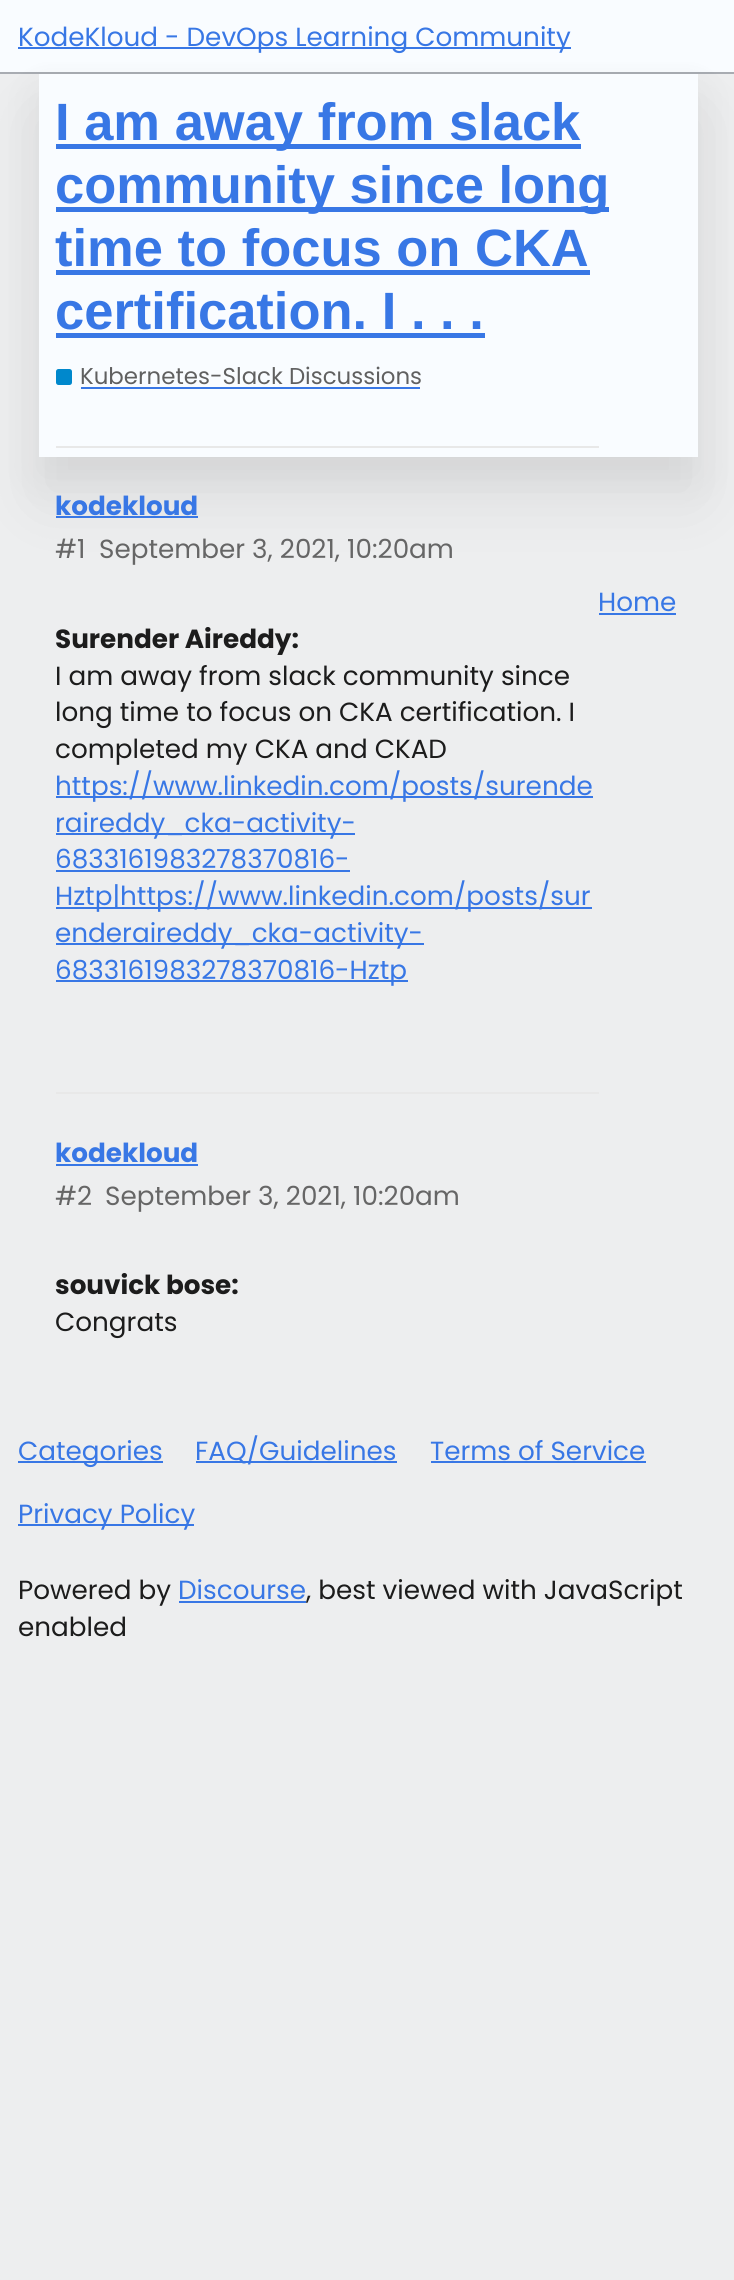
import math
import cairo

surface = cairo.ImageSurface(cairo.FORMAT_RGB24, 734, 2280)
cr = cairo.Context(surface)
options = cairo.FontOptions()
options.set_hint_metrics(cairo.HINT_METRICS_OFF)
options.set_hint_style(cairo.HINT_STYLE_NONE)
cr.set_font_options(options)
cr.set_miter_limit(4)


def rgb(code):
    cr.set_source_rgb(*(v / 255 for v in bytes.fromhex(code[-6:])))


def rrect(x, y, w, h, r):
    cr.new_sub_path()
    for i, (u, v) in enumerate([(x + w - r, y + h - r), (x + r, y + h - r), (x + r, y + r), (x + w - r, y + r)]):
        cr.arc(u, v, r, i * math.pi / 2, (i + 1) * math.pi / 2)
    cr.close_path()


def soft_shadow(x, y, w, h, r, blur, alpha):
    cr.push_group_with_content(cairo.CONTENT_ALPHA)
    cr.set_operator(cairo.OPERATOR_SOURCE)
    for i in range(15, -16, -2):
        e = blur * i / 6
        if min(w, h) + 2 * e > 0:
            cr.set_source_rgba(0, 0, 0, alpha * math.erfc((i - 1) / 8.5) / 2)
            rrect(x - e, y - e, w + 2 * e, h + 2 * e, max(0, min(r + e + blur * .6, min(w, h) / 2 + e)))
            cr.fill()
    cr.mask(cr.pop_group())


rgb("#edeeef")
cr.paint()
rgb("#f9fcff")
cr.rectangle(0, 0, 734, 72)
cr.fill()
rgb("#a8acb2")
cr.rectangle(0, 72, 734, 2)
cr.fill()
rgb("#000000")
soft_shadow(39, 93, 659, 383, 0, 21, 0.05)
soft_shadow(39, 116, 659, 383, 0, 35, 0.07)
for x, y, w, h, color in [
    (18, 47, 553, 2, "#3877e5"),
    (39, 74, 659, 383, "#f9fcff"),
    (56, 144, 525, 5, "#3877e5"),
    (56, 207, 553, 5, "#3877e5"),
    (56, 270, 534, 5, "#3877e5"),
    (56, 333, 429, 5, "#3877e5"),
]:
    rgb(color)
    cr.rectangle(x, y, w, h)
    cr.fill()
rgb("#0088cc")
rrect(56, 369, 16, 16, 2.5)
cr.fill()
for x, y, w, h, color in [
    (81, 387, 339, 2, "#3877e5"),
    (56, 446, 543, 2, "#e8e8e8"),
    (56, 516, 142, 2, "#3877e5"),
    (56, 796, 537, 2, "#3877e5"),
    (56, 833, 299, 2, "#3877e5"),
    (56, 870, 294, 2, "#3877e5"),
    (56, 907, 536, 2, "#3877e5"),
    (56, 943, 368, 2, "#3877e5"),
    (56, 980, 352, 2, "#3877e5"),
    (56, 1092, 543, 2, "#e8e8e8"),
    (56, 1164, 142, 2, "#3877e5"),
    (599, 613, 77, 2, "#3877e5"),
    (18, 1461, 145, 2, "#3877e5"),
    (196, 1461, 201, 2, "#3877e5"),
    (431, 1461, 215, 2, "#3877e5"),
    (18, 1524, 176, 2, "#3877e5"),
    (179, 1601, 127, 2, "#3877e5"),
]:
    rgb(color)
    cr.rectangle(x, y, w, h)
    cr.fill()
cr.select_font_face("Poppins")
cr.set_font_size(26.25)
cr.move_to(18, 46)
cr.show_text("KodeKloud - DevOps Learning Community")
cr.select_font_face("Liberation Sans", cairo.FONT_SLANT_NORMAL, cairo.FONT_WEIGHT_BOLD)
cr.set_font_size(52.5)
for x, y, s in [
    (55, 140, "I am away from slack"),
    (55, 203, "community since long"),
    (55, 266, "time to focus on CKA"),
    (55, 329, "certification. I . . ."),
]:
    cr.move_to(x, y)
    cr.show_text(s)
cr.select_font_face("Poppins")
cr.set_font_size(22.9)
rgb("#606060")
cr.move_to(80, 384)
cr.show_text("Kubernetes-Slack Discussions")
cr.select_font_face("Poppins", cairo.FONT_SLANT_NORMAL, cairo.FONT_WEIGHT_BOLD)
cr.set_font_size(26.25)
rgb("#3877e5")
cr.move_to(55, 515)
cr.show_text("kodekloud")
cr.select_font_face("Poppins")
rgb("#666666")
cr.move_to(55, 558)
cr.show_text("#1")
cr.move_to(99, 558)
cr.show_text("September 3, 2021, 10:20am")
cr.select_font_face("Poppins", cairo.FONT_SLANT_NORMAL, cairo.FONT_WEIGHT_BOLD)
rgb("#1c1c1c")
cr.move_to(55, 648)
cr.show_text("Surender Aireddy:")
cr.select_font_face("Poppins")
for x, y, s in [
    (55, 685, "I am away from slack community since"),
    (55, 721, "long time to focus on CKA certification. I"),
    (55, 758, "completed my CKA and CKAD"),
]:
    cr.move_to(x, y)
    cr.show_text(s)
rgb("#3877e5")
for x, y, s in [
    (55, 795, "https://www.linkedin.com/posts/surende"),
    (55, 832, "raireddy_cka-activity-"),
    (55, 868, "6833161983278370816-"),
    (55, 905, "Hztp|https://www.linkedin.com/posts/sur"),
    (55, 942, "enderaireddy_cka-activity-"),
    (55, 979, "6833161983278370816-Hztp"),
]:
    cr.move_to(x, y)
    cr.show_text(s)
cr.select_font_face("Poppins", cairo.FONT_SLANT_NORMAL, cairo.FONT_WEIGHT_BOLD)
cr.move_to(55, 1162)
cr.show_text("kodekloud")
cr.select_font_face("Poppins")
rgb("#666666")
cr.move_to(55, 1205)
cr.show_text("#2")
cr.move_to(105, 1205)
cr.show_text("September 3, 2021, 10:20am")
cr.select_font_face("Poppins", cairo.FONT_SLANT_NORMAL, cairo.FONT_WEIGHT_BOLD)
rgb("#1c1c1c")
cr.move_to(55, 1294)
cr.show_text("souvick bose:")
cr.select_font_face("Poppins")
cr.move_to(55, 1331)
cr.show_text("Congrats")
rgb("#3877e5")
for x, y, s in [
    (598, 611, "Home"),
    (18, 1460, "Categories"),
    (195, 1460, "FAQ/Guidelines"),
    (430, 1460, "Terms of Service"),
    (18, 1523, "Privacy Policy"),
]:
    cr.move_to(x, y)
    cr.show_text(s)
rgb("#1c1c1c")
cr.move_to(18, 1599)
cr.show_text("Powered by")
rgb("#3877e5")
cr.move_to(178, 1599)
cr.show_text("Discourse")
rgb("#1c1c1c")
cr.move_to(306, 1599)
cr.show_text(", best viewed with JavaScript")
cr.move_to(18, 1636)
cr.show_text("enabled")
surface.write_to_png("page.png")
